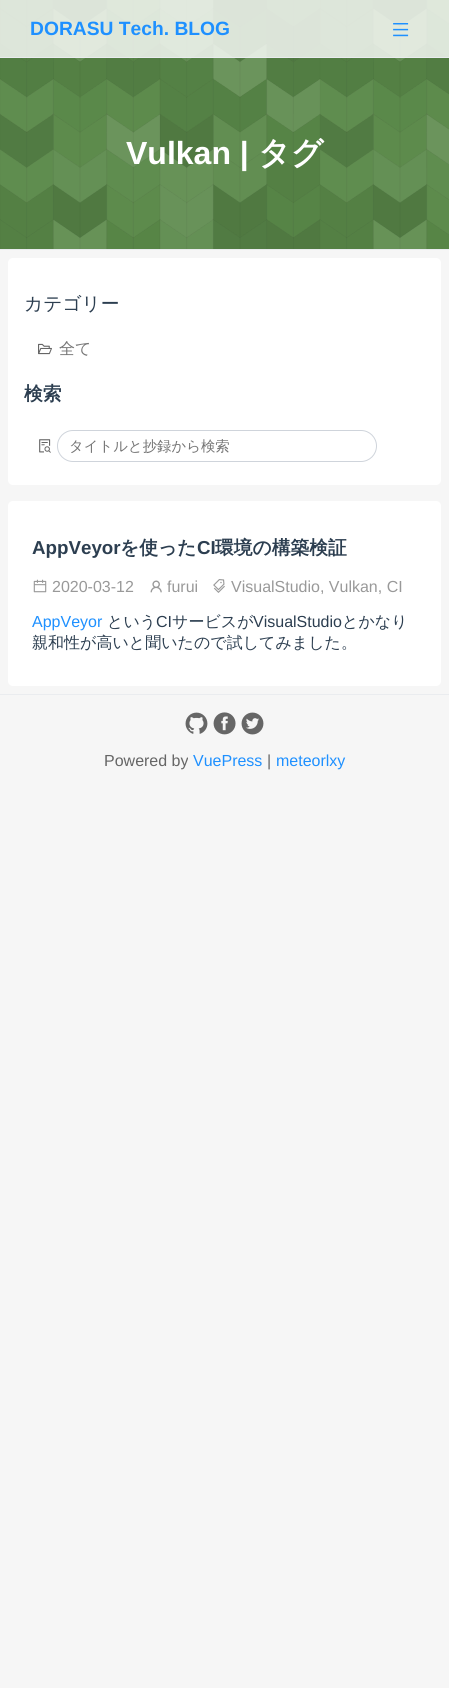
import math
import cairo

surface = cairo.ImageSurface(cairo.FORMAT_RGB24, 449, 1688)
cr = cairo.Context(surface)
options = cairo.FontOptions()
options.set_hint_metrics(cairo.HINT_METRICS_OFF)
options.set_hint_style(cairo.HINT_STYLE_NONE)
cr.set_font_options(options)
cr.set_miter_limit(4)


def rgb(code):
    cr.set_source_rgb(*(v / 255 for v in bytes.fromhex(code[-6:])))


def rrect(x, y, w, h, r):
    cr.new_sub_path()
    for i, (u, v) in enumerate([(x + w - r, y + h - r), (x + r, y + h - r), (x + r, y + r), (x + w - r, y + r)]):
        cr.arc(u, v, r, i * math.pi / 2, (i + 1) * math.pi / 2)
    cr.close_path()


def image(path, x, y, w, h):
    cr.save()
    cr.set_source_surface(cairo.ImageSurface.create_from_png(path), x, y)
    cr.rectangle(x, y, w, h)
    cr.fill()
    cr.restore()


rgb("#f6f6f6")
cr.paint()
image("img/1.png", 0, 0, 449, 249)
cr.set_source_rgba(1, 1, 1, 0.8)
cr.rectangle(0, 0, 449, 57)
cr.fill()
rgb("#eaecef")
cr.rectangle(0, 57, 449, 1)
cr.fill()
image("img/2.png", 393, 23, 16, 14)
cr.rectangle(0, 249, 449, 1)
cr.fill()
rgb("#ffffff")
rrect(8, 258, 433, 227, 5)
cr.fill()
image("img/3.png", 38, 343, 14, 12)
image("img/4.png", 39, 439, 12, 14)
rrect(57.5, 430.5, 319, 31, 15.5)
rgb("#cfd4db")
cr.set_line_width(1)
cr.stroke()
rgb("#ffffff")
rrect(8, 501, 433, 185, 5)
cr.fill()
image("img/5.png", 33, 579, 14, 14)
image("img/6.png", 150, 580, 12, 13)
image("img/7.png", 213, 579, 12, 14)
rgb("#eaecef")
cr.rectangle(0, 694, 449, 1)
cr.fill()
image("img/8.png", 185, 712, 23, 22)
image("img/9.png", 213, 712, 23, 23)
image("img/10.png", 241, 712, 23, 23)
cr.select_font_face("Liberation Sans", cairo.FONT_SLANT_NORMAL, cairo.FONT_WEIGHT_BOLD)
cr.set_font_size(19.25)
rgb("#1e90ff")
cr.move_to(30, 35)
cr.show_text("DORASU Tech. BLOG")
cr.set_font_size(32)
rgb("#ffffff")
cr.move_to(126, 164)
cr.show_text("Vulkan |")
cr.select_font_face("WenQuanYi Zen Hei", cairo.FONT_SLANT_NORMAL, cairo.FONT_WEIGHT_BOLD)
cr.move_to(258, 164)
cr.show_text("タグ")
cr.select_font_face("WenQuanYi Zen Hei Medium")
cr.set_font_size(18.75)
rgb("#2c3e50")
cr.move_to(24, 310)
cr.show_text("カテゴリー")
cr.set_font_size(16)
rgb("#757575")
cr.move_to(59, 354)
cr.show_text("全て")
cr.select_font_face("WenQuanYi Zen Hei", cairo.FONT_SLANT_NORMAL, cairo.FONT_WEIGHT_BOLD)
cr.set_font_size(18.75)
rgb("#2c3e50")
cr.move_to(24, 400)
cr.show_text("検索")
cr.select_font_face("WenQuanYi Zen Hei Medium")
cr.set_font_size(14.4)
rgb("#757575")
cr.move_to(69, 451)
cr.show_text("タイトルと抄録から検索")
cr.select_font_face("Liberation Sans", cairo.FONT_SLANT_NORMAL, cairo.FONT_WEIGHT_BOLD)
cr.set_font_size(18.75)
rgb("#2c3e50")
cr.move_to(32, 554)
cr.show_text("AppVeyor")
cr.select_font_face("WenQuanYi Zen Hei", cairo.FONT_SLANT_NORMAL, cairo.FONT_WEIGHT_BOLD)
cr.move_to(120, 554)
cr.show_text("を使った")
cr.select_font_face("Liberation Sans", cairo.FONT_SLANT_NORMAL, cairo.FONT_WEIGHT_BOLD)
cr.move_to(197, 554)
cr.show_text("CI")
cr.select_font_face("WenQuanYi Zen Hei", cairo.FONT_SLANT_NORMAL, cairo.FONT_WEIGHT_BOLD)
cr.move_to(215, 554)
cr.show_text("環境の構築検証")
cr.select_font_face("Liberation Sans")
cr.set_font_size(16)
rgb("#999999")
for x, y, s in [
    (52, 592, "2020-03-12"),
    (167, 592, "furui"),
    (231, 592, "VisualStudio, Vulkan, CI"),
]:
    cr.move_to(x, y)
    cr.show_text(s)
rgb("#1e90ff")
cr.move_to(32, 627)
cr.show_text("AppVeyor")
cr.select_font_face("WenQuanYi Zen Hei Medium")
rgb("#2c3e50")
cr.move_to(107, 627)
cr.show_text("という")
cr.select_font_face("Liberation Sans")
cr.move_to(156, 627)
cr.show_text("CI")
cr.select_font_face("WenQuanYi Zen Hei Medium")
cr.move_to(172, 627)
cr.show_text("サービスが")
cr.select_font_face("Liberation Sans")
cr.move_to(253, 627)
cr.show_text("VisualStudio")
cr.select_font_face("WenQuanYi Zen Hei Medium")
cr.move_to(342, 627)
cr.show_text("とかなり")
cr.move_to(32, 648)
cr.show_text("親和性が高いと聞いたので試してみました。")
cr.select_font_face("Liberation Sans")
rgb("#666666")
cr.move_to(104, 766)
cr.show_text("Powered by")
rgb("#1e90ff")
cr.move_to(193, 766)
cr.show_text("VuePress")
rgb("#666666")
cr.move_to(267, 766)
cr.show_text("|")
rgb("#1e90ff")
cr.move_to(276, 766)
cr.show_text("meteorlxy")
surface.write_to_png("page.png")
